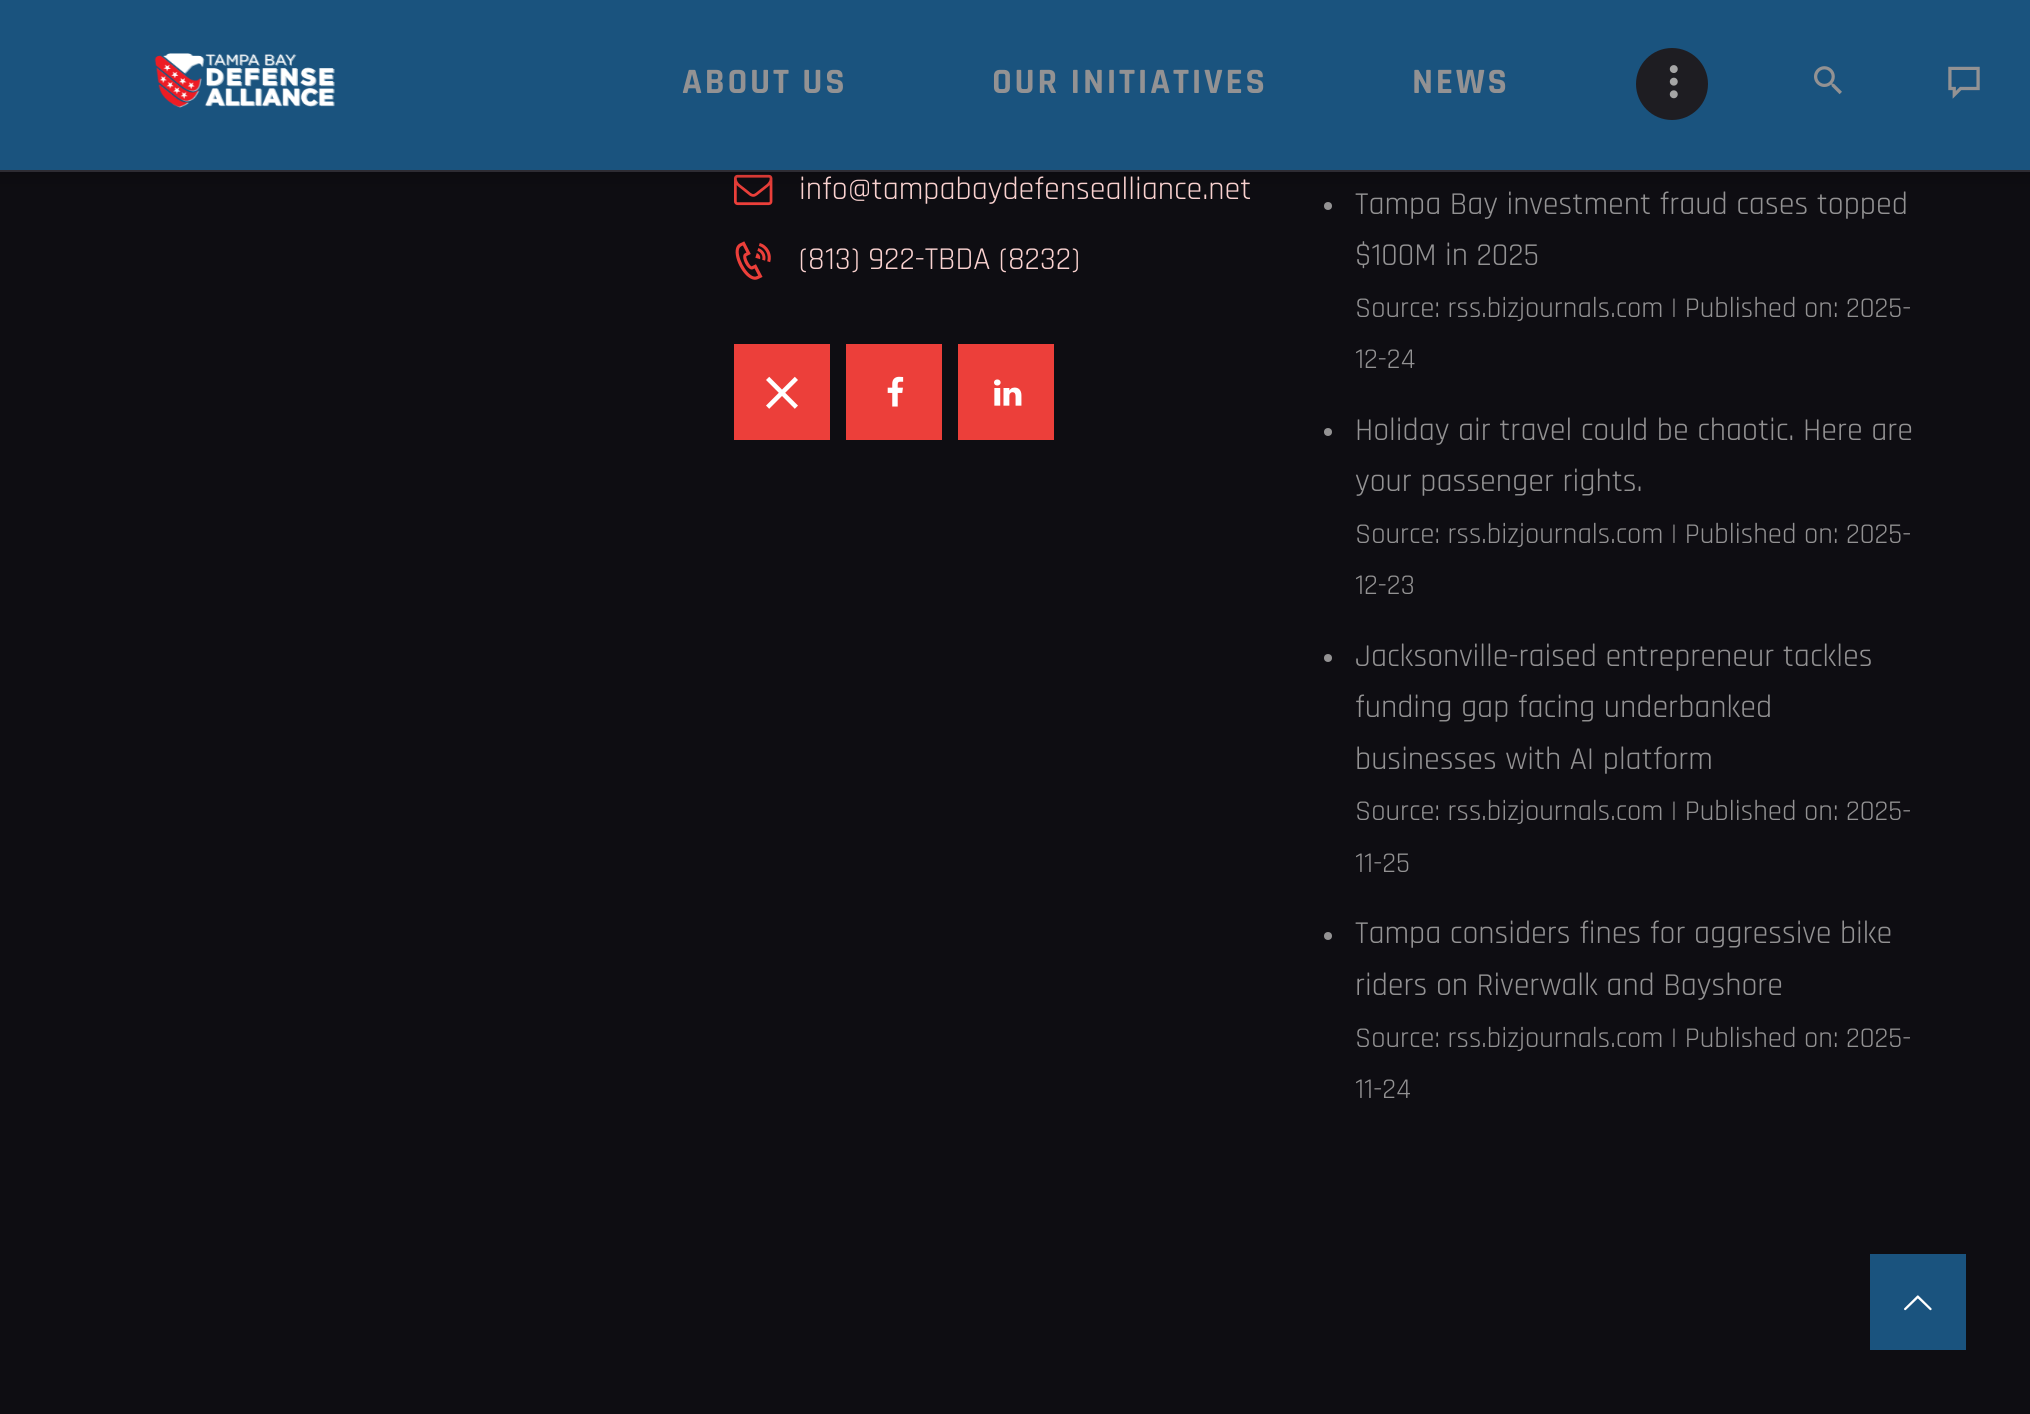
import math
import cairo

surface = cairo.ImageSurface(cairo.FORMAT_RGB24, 2030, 1414)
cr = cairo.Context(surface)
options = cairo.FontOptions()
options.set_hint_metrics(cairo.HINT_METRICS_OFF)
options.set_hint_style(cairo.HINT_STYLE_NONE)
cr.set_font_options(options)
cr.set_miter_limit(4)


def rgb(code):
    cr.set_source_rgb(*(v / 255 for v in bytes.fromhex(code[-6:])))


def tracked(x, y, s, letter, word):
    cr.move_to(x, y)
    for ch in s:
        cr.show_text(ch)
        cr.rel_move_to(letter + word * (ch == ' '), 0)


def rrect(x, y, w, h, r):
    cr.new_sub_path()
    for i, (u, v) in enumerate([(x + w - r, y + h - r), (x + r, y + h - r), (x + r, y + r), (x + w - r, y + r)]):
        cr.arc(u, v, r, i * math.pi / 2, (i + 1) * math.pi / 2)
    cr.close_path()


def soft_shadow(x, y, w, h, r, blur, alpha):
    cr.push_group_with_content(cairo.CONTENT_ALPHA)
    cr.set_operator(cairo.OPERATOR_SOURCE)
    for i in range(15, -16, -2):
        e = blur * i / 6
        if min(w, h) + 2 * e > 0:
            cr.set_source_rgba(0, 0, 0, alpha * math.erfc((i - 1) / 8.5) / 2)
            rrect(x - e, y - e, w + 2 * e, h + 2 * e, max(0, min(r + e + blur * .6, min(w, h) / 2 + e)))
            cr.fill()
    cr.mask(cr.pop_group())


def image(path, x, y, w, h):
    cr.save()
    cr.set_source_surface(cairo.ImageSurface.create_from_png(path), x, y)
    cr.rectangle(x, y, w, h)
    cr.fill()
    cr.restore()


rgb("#0e0d12")
cr.paint()
image("img/5.png", 734, 174, 39, 32)
rgb("#939293")
cr.arc(1328, 206, 4, 0, 2 * math.pi)
cr.fill()
rgb("#000000")
soft_shadow(-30, 4, 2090, 172, 0, 10, 0.2)
rgb("#1a537e")
cr.rectangle(0, 0, 2030, 170)
cr.fill()
rgb("#2e2c33")
cr.rectangle(0, 170, 2030, 2)
cr.fill()
image("img/1.png", 154, 53, 181, 55)
rgb("#1e1d22")
cr.arc(1672, 84, 36, 0, 2 * math.pi)
cr.fill()
image("img/2.png", 1669, 65, 9, 34)
image("img/3.png", 1814, 66, 28, 29)
image("img/4.png", 1948, 66, 32, 33)
image("img/6.png", 735, 241, 36, 39)
rgb("#ec3f3a")
cr.rectangle(734, 344, 96, 96)
cr.fill()
image("img/7.png", 766, 376, 32, 33)
cr.rectangle(846, 344, 96, 96)
cr.fill()
image("img/8.png", 887, 376, 17, 31)
cr.rectangle(958, 344, 96, 96)
cr.fill()
image("img/9.png", 994, 379, 28, 27)
rgb("#939293")
cr.arc(1328, 432, 4, 0, 2 * math.pi)
cr.fill()
cr.arc(1328, 658, 4, 0, 2 * math.pi)
cr.fill()
cr.arc(1328, 936, 4, 0, 2 * math.pi)
cr.fill()
rgb("#1a537e")
cr.rectangle(1870, 1254, 96, 96)
cr.fill()
image("img/10.png", 1904, 1295, 28, 16)
cr.select_font_face("Rajdhani", cairo.FONT_SLANT_NORMAL, cairo.FONT_WEIGHT_BOLD)
cr.set_font_size(36)
rgb("#939293")
for x, y, s in [
    (682, 93, "ABOUT US"),
    (992, 93, "OUR INITIATIVES"),
    (1412, 93, "NEWS"),
]:
    tracked(x, y, s, 2.75, 0)
cr.select_font_face("Rajdhani")
cr.set_font_size(32)
rgb("#fad2d0")
cr.move_to(799, 199)
cr.show_text("info@tampabaydefensealliance.net")
cr.move_to(799, 269)
cr.show_text("(813) 922-TBDA (8232)")
rgb("#939293")
cr.move_to(1355, 214)
cr.show_text("Tampa Bay investment fraud cases topped")
cr.move_to(1355, 265)
cr.show_text("$100M in 2025")
cr.set_font_size(28.75)
cr.move_to(1355, 317)
cr.show_text("Source: rss.bizjournals.com | Published on: 2025-")
cr.move_to(1355, 368)
cr.show_text("12-24")
cr.set_font_size(32)
cr.move_to(1355, 440)
cr.show_text("Holiday air travel could be chaotic. Here are")
cr.move_to(1355, 491)
cr.show_text("your passenger rights.")
cr.set_font_size(28.75)
cr.move_to(1355, 543)
cr.show_text("Source: rss.bizjournals.com | Published on: 2025-")
cr.move_to(1355, 594)
cr.show_text("12-23")
cr.set_font_size(32)
for x, y, s in [
    (1355, 666, "Jacksonville-raised entrepreneur tackles"),
    (1355, 717, "funding gap facing underbanked"),
    (1355, 769, "businesses with AI platform"),
]:
    cr.move_to(x, y)
    cr.show_text(s)
cr.set_font_size(28.75)
cr.move_to(1355, 820)
cr.show_text("Source: rss.bizjournals.com | Published on: 2025-")
cr.move_to(1355, 872)
cr.show_text("11-25")
cr.set_font_size(32)
cr.move_to(1355, 943)
cr.show_text("Tampa considers fines for aggressive bike")
cr.move_to(1355, 995)
cr.show_text("riders on Riverwalk and Bayshore")
cr.set_font_size(28.75)
cr.move_to(1355, 1047)
cr.show_text("Source: rss.bizjournals.com | Published on: 2025-")
cr.move_to(1355, 1098)
cr.show_text("11-24")
surface.write_to_png("page.png")
